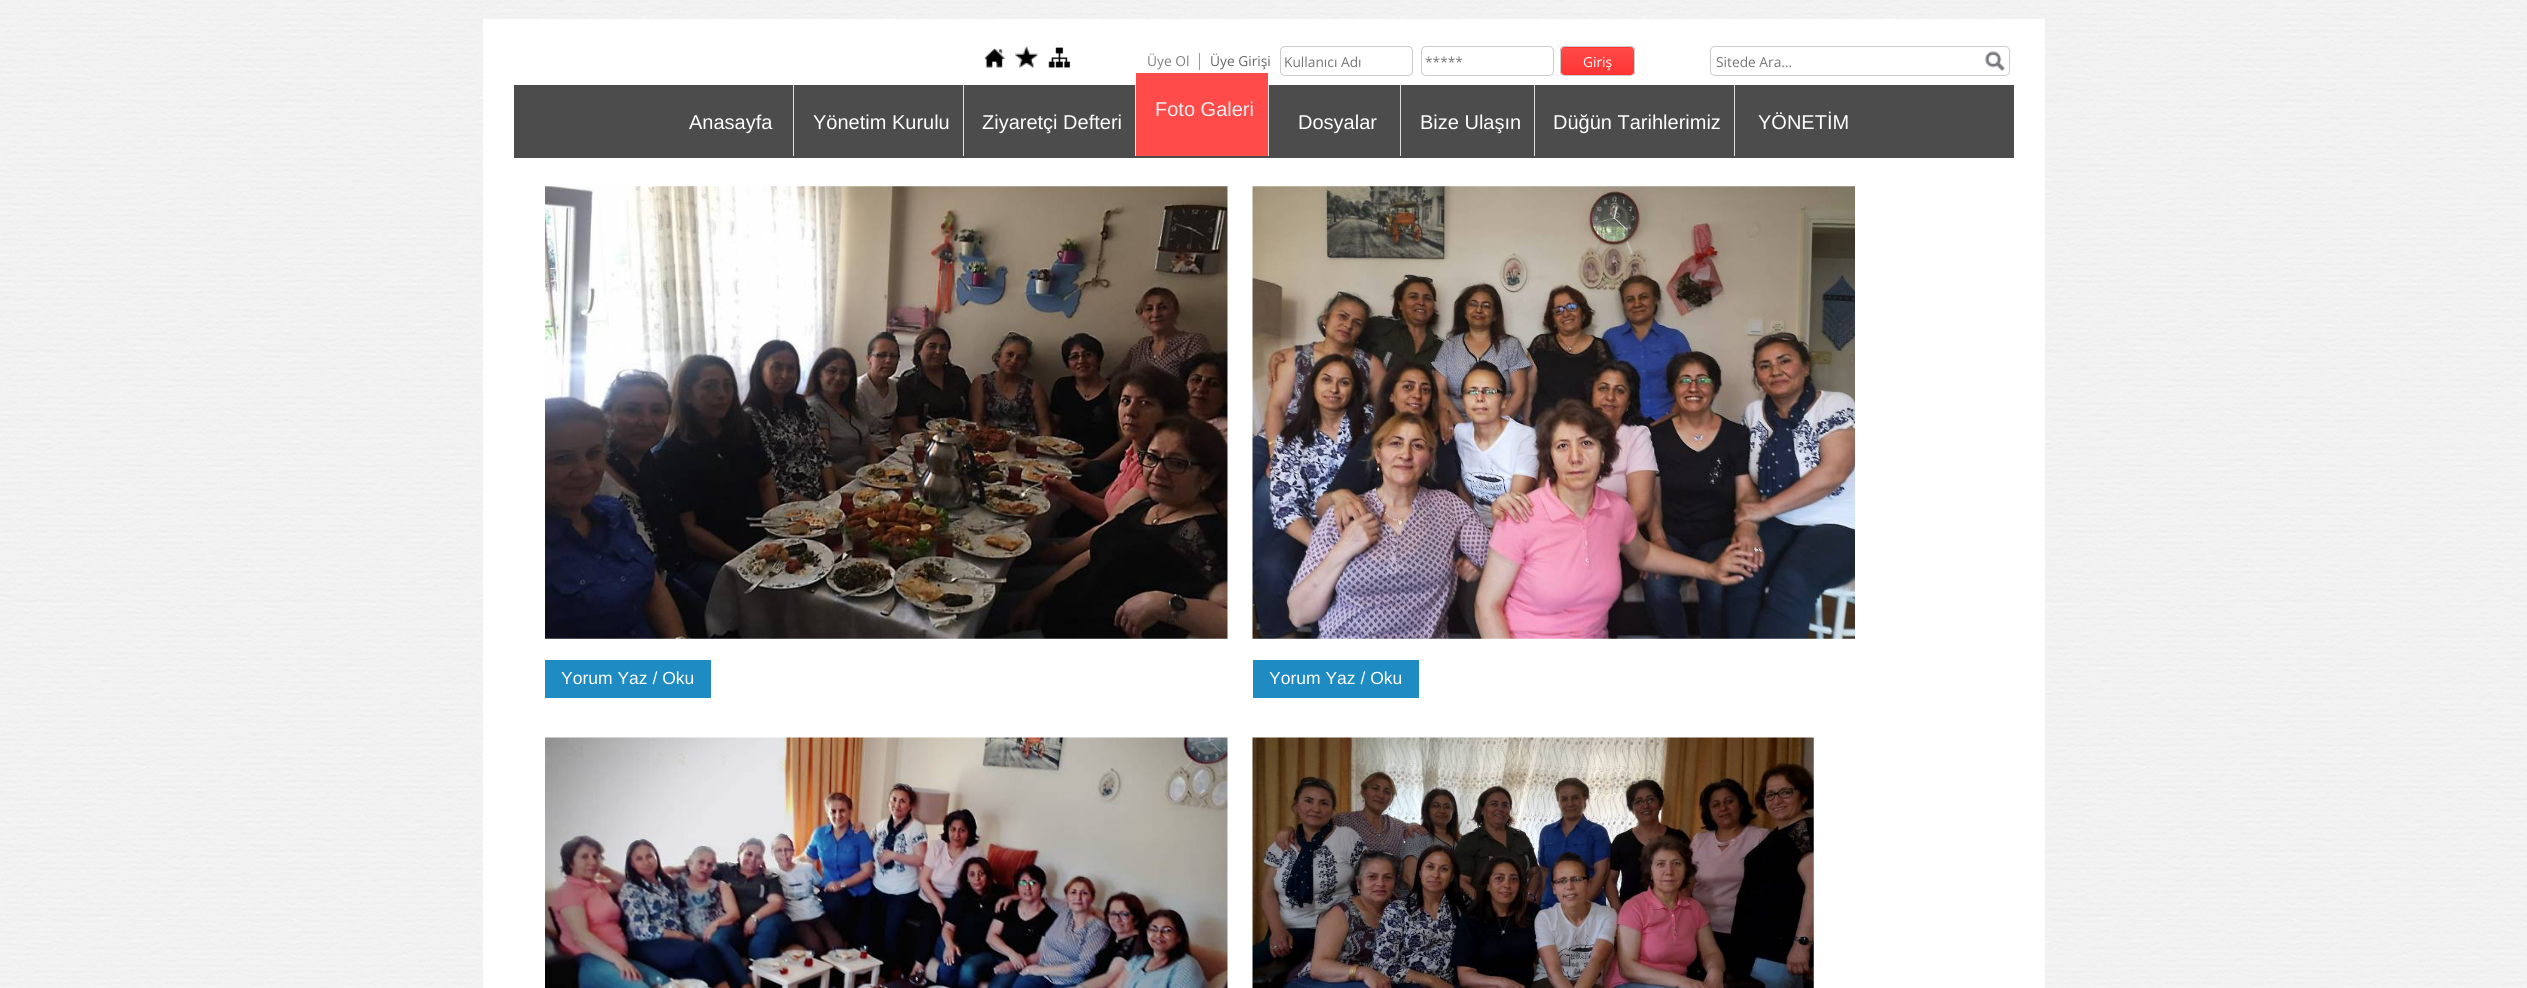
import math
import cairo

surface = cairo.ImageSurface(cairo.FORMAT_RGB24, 2527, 988)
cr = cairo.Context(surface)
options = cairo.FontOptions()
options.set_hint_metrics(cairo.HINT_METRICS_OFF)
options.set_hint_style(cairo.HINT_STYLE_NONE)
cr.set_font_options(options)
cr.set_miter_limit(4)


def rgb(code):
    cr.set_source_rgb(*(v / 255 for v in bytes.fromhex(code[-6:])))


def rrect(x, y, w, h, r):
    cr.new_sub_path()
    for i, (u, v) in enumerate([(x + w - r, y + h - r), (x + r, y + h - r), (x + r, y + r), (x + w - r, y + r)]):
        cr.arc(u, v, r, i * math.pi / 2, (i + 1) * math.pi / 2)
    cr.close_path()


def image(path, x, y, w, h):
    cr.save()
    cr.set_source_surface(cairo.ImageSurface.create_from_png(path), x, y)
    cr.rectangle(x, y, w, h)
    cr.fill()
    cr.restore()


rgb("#ffffff")
cr.paint()
image("img/1.png", 0, 0, 2527, 988)
rgb("#ffffff")
cr.rectangle(483, 19, 1562, 969)
cr.fill()
image("img/2.png", 983, 48, 23, 20)
image("img/3.png", 1015, 46, 24, 22)
image("img/4.png", 1048, 47, 23, 21)
rgb("#999999")
cr.rectangle(1199, 53, 1, 17)
cr.fill()
rrect(1280.5, 46.5, 132, 29, 4.5)
rgb("#cccccc")
cr.set_line_width(1)
cr.stroke()
rrect(1421.5, 46.5, 132, 29, 4.5)
cr.stroke()
cr.save()
rrect(1560, 46, 75, 30, 5)
cr.clip()
gradient = cairo.LinearGradient(1598, 20, 1598, 48)
gradient.add_color_stop_rgba(0, 1, 0.294, 0.286, 1)
gradient.add_color_stop_rgba(1, 1, 0.204, 0.196, 1)
cr.set_source(gradient)
cr.rectangle(1560, 46, 75, 2)
cr.fill()
gradient = cairo.LinearGradient(1598, 48, 1598, 75)
gradient.add_color_stop_rgba(0, 1, 0.294, 0.286, 1)
gradient.add_color_stop_rgba(1, 1, 0.204, 0.196, 1)
cr.set_source(gradient)
cr.rectangle(1560, 48, 75, 27)
cr.fill()
cr.restore()
rrect(1560.5, 46.5, 74, 29, 4.5)
cr.stroke()
rrect(1710.5, 46.5, 299, 29, 4.5)
cr.stroke()
image("img/5.png", 1985, 51, 20, 21)
for x, y, w, h, color in [
    (514, 85, 1500, 73, "#4c4c4c"),
    (1268, 85, 1, 71, "#dddddd"),
    (1136, 73, 132, 83, "#ff4b49"),
    (793, 85, 1, 71, "#dddddd"),
    (963, 85, 1, 71, "#dddddd"),
    (1135, 85, 1, 71, "#dddddd"),
    (1400, 85, 1, 71, "#dddddd"),
    (1534, 85, 1, 71, "#dddddd"),
    (1734, 85, 1, 71, "#dddddd"),
]:
    rgb(color)
    cr.rectangle(x, y, w, h)
    cr.fill()
image("img/6.png", 545, 186, 683, 453)
rgb("#1e8bc3")
cr.rectangle(545, 660, 166, 38)
cr.fill()
image("img/7.png", 1252, 186, 603, 453)
cr.rectangle(1253, 660, 166, 38)
cr.fill()
image("img/8.png", 545, 737, 683, 251)
image("img/9.png", 1252, 737, 562, 251)
cr.select_font_face("Open Sans")
cr.set_font_size(13.75)
rgb("#7f7f7f")
cr.move_to(1147, 66)
cr.show_text("Üye Ol")
rgb("#666666")
cr.move_to(1210, 66)
cr.show_text("Üye Girişi")
rgb("#757575")
cr.move_to(1284, 67)
cr.show_text("Kullanıcı Adı")
cr.move_to(1425, 67)
cr.show_text("*****")
rgb("#ffffff")
cr.move_to(1583, 67)
cr.show_text("Giriş")
rgb("#757575")
cr.move_to(1716, 67)
cr.show_text("Sitede Ara...")
cr.select_font_face("Liberation Sans")
cr.set_font_size(20)
rgb("#eeeeee")
cr.move_to(1155, 116)
cr.show_text("Foto Galeri")
rgb("#ffffff")
for x, y, s in [
    (689, 129, "Anasayfa"),
    (813, 129, "Yönetim Kurulu"),
    (982, 129, "Ziyaretçi Defteri"),
    (1298, 129, "Dosyalar"),
    (1420, 129, "Bize Ulaşın"),
    (1553, 129, "Düğün Tarihlerimiz"),
    (1758, 129, "YÖNETİM"),
]:
    cr.move_to(x, y)
    cr.show_text(s)
cr.set_font_size(17.5)
cr.move_to(561, 684)
cr.show_text("Yorum Yaz / Oku")
cr.move_to(1269, 684)
cr.show_text("Yorum Yaz / Oku")
surface.write_to_png("page.png")
